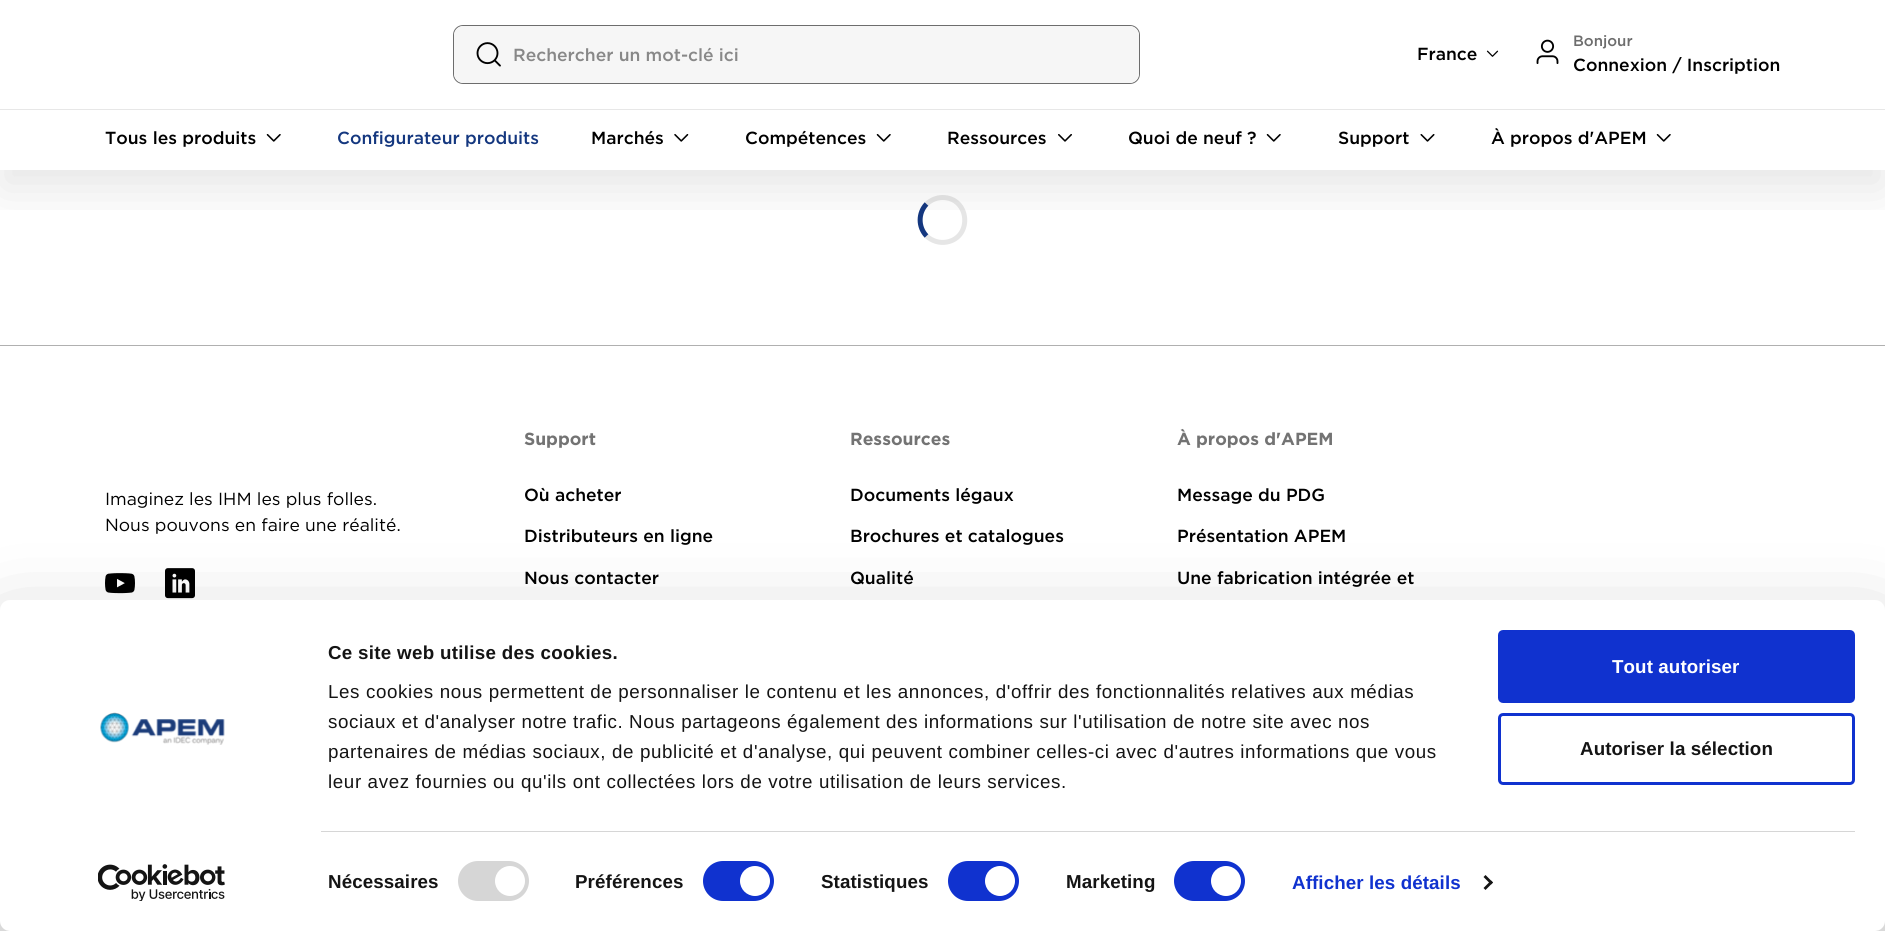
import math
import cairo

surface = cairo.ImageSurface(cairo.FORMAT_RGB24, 1885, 931)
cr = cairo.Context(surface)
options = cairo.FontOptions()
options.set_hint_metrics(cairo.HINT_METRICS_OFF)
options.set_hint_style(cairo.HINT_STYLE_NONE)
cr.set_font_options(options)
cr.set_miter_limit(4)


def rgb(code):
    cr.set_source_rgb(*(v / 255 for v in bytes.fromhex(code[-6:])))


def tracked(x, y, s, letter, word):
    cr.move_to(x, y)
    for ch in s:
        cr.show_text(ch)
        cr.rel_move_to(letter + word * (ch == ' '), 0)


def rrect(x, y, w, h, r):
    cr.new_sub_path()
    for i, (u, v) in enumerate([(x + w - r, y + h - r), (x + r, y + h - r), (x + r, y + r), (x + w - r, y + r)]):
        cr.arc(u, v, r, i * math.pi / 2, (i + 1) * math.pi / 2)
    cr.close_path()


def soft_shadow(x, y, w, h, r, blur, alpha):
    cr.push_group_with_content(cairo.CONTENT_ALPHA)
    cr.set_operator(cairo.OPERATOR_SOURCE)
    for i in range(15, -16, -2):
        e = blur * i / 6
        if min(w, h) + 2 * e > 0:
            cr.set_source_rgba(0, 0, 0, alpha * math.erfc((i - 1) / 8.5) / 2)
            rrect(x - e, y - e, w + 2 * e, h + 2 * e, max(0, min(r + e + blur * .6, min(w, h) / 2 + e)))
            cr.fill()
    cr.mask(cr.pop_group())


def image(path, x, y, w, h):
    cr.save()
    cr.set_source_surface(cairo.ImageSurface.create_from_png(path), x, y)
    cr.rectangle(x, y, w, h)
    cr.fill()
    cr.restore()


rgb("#ffffff")
cr.paint()
cr.new_path()
cr.move_to(926.5, 204)
cr.curve_to(931, 200, 936.5, 197.5, 942.5, 197.5)
cr.curve_to(969.5, 197.5, 973, 237, 947, 242)
cr.curve_to(939.5, 243.5, 932, 241, 926.5, 236)
rgb("#e6e6e6")
cr.set_line_width(5)
cr.stroke()
cr.new_path()
cr.move_to(926.5, 236)
cr.curve_to(918, 227, 918, 213, 926.5, 204)
rgb("#14377f")
cr.stroke()
cr.save()
cr.rectangle(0, 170, 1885, 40)
cr.clip()
rgb("#000000")
soft_shadow(0, 19, 1885, 170, 0, 25, 0.1)
cr.restore()
rrect(453.5, 25.5, 686, 58, 9.5)
rgb("#6d6d6d")
cr.set_line_width(1)
cr.stroke()
rgb("#f6f6f6")
rrect(454, 26, 685, 57, 10)
cr.fill()
image("img/1.png", 476, 42, 25, 25)
image("img/2.png", 1486, 50, 13, 7)
image("img/3.png", 1536, 39, 23, 25)
rgb("#e7e7e7")
cr.rectangle(0, 109, 1885, 1)
cr.fill()
image("img/4.png", 266, 134, 15, 8)
image("img/5.png", 674, 134, 15, 8)
image("img/4.png", 876, 134, 15, 8)
image("img/6.png", 1058, 134, 14, 8)
image("img/4.png", 1266, 134, 15, 8)
image("img/7.png", 1420, 134, 15, 8)
image("img/4.png", 1656, 134, 15, 8)
rgb("#b0b0b0")
cr.rectangle(0, 345, 1885, 1)
cr.fill()
image("img/8.png", 105, 573, 30, 21)
image("img/9.png", 165, 568, 30, 31)
rgb("#000000")
soft_shadow(0, 638, 1885, 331, 10, 44, 0.3)
rgb("#ffffff")
rrect(0, 600, 1885, 331, 10)
cr.fill()
image("img/10.png", 100, 712, 125, 33)
image("img/11.png", 98, 864, 127, 37)
rgb("#d6d6d6")
cr.rectangle(321, 831, 1534, 1)
cr.fill()
rrect(458, 861, 71, 40, 20)
cr.fill()
rgb("#ffffff")
cr.arc(510, 881, 15, 0, 2 * math.pi)
cr.fill()
rgb("#1032cf")
rrect(703, 861, 71, 40, 20)
cr.fill()
rgb("#ffffff")
cr.arc(755, 881, 15, 0, 2 * math.pi)
cr.fill()
rgb("#1032cf")
rrect(948, 861, 71, 40, 20)
cr.fill()
rgb("#ffffff")
cr.arc(1000, 881, 15, 0, 2 * math.pi)
cr.fill()
rgb("#1032cf")
rrect(1174, 861, 71, 40, 20)
cr.fill()
rgb("#ffffff")
cr.arc(1226, 881, 15, 0, 2 * math.pi)
cr.fill()
rgb("#141414")
cr.new_path()
cr.move_to(1485.5, 875)
cr.line_to(1493, 882.5)
cr.line_to(1491, 884.5)
cr.line_to(1483.5, 877)
cr.close_path()
cr.fill()
cr.new_path()
cr.move_to(1491, 880.5)
cr.line_to(1493, 882.5)
cr.line_to(1485.5, 890)
cr.line_to(1483.5, 888)
cr.close_path()
cr.fill()
rgb("#1032cf")
rrect(1499.5, 631.5, 354, 70, 3.5)
cr.fill_preserve()
cr.set_line_width(3)
cr.stroke()
rrect(1499.5, 714.5, 354, 69, 3.5)
cr.stroke()
cr.select_font_face("Gotham Medium")
cr.set_font_size(17.5)
rgb("#888888")
cr.move_to(513, 61)
cr.show_text("Rechercher un mot-clé ici")
rgb("#000000")
cr.move_to(1417, 60)
cr.show_text("France")
cr.set_font_size(15)
rgb("#6d6d6d")
cr.move_to(1573, 46)
cr.show_text("Bonjour")
cr.set_font_size(17.5)
rgb("#000000")
cr.move_to(1573, 71)
cr.show_text("Connexion / Inscription")
cr.move_to(105, 144)
cr.show_text("Tous les produits")
rgb("#14377f")
cr.move_to(337, 144)
cr.show_text("Configurateur produits")
rgb("#000000")
for x, y, s in [
    (591, 144, "Marchés"),
    (745, 144, "Compétences"),
    (947, 144, "Ressources"),
    (1128, 144, "Quoi de neuf ?"),
    (1338, 144, "Support"),
    (1491, 144, "À propos d'APEM"),
]:
    cr.move_to(x, y)
    cr.show_text(s)
cr.select_font_face("Gotham")
cr.move_to(105, 505)
cr.show_text("Imaginez les IHM les plus folles.")
cr.move_to(105, 531)
cr.show_text("Nous pouvons en faire une réalité.")
cr.select_font_face("Gotham", cairo.FONT_SLANT_NORMAL, cairo.FONT_WEIGHT_BOLD)
rgb("#737373")
cr.move_to(524, 445)
cr.show_text("Support")
cr.select_font_face("Gotham Medium")
rgb("#000000")
for x, y, s in [
    (524, 501, "Où acheter"),
    (524, 542, "Distributeurs en ligne"),
    (524, 584, "Nous contacter"),
]:
    cr.move_to(x, y)
    cr.show_text(s)
cr.select_font_face("Gotham", cairo.FONT_SLANT_NORMAL, cairo.FONT_WEIGHT_BOLD)
rgb("#737373")
cr.move_to(850, 445)
cr.show_text("Ressources")
cr.select_font_face("Gotham Medium")
rgb("#000000")
for x, y, s in [
    (850, 501, "Documents légaux"),
    (850, 542, "Brochures et catalogues"),
    (850, 584, "Qualité"),
]:
    cr.move_to(x, y)
    cr.show_text(s)
cr.select_font_face("Gotham", cairo.FONT_SLANT_NORMAL, cairo.FONT_WEIGHT_BOLD)
rgb("#737373")
cr.move_to(1177, 445)
cr.show_text("À propos d'APEM")
cr.select_font_face("Gotham Medium")
rgb("#000000")
for x, y, s in [
    (1177, 501, "Message du PDG"),
    (1177, 542, "Présentation APEM"),
    (1177, 584, "Une fabrication intégrée et"),
]:
    cr.move_to(x, y)
    cr.show_text(s)
cr.select_font_face("Liberation Sans", cairo.FONT_SLANT_NORMAL, cairo.FONT_WEIGHT_BOLD)
cr.set_font_size(18.75)
rgb("#141414")
tracked(328, 659, "Ce site web utilise des cookies.", 0.3, 0)
cr.select_font_face("Liberation Sans")
for x, y, s in [
    (328, 698, "Les cookies nous permettent de personnaliser le contenu et les annonces, d'offrir des fonctionnalités relatives aux médias"),
    (328, 728, "sociaux et d'analyser notre trafic. Nous partageons également des informations sur l'utilisation de notre site avec nos"),
    (328, 758, "partenaires de médias sociaux, de publicité et d'analyse, qui peuvent combiner celles-ci avec d'autres informations que vous"),
    (328, 788, "leur avez fournies ou qu'ils ont collectées lors de votre utilisation de leurs services."),
]:
    tracked(x, y, s, 0.62, 0)
cr.select_font_face("Liberation Sans", cairo.FONT_SLANT_NORMAL, cairo.FONT_WEIGHT_BOLD)
for x, y, s in [
    (328, 888, "Nécessaires"),
    (575, 888, "Préférences"),
    (821, 888, "Statistiques"),
    (1066, 888, "Marketing"),
]:
    tracked(x, y, s, 0.1, 0)
rgb("#1032cf")
tracked(1292, 889, "Afficher les détails", 0.1, 0)
rgb("#ffffff")
tracked(1612, 673, "Tout autoriser", 0.1, 0)
rgb("#141414")
tracked(1580, 755, "Autoriser la sélection", 0.1, 0)
surface.write_to_png("page.png")
